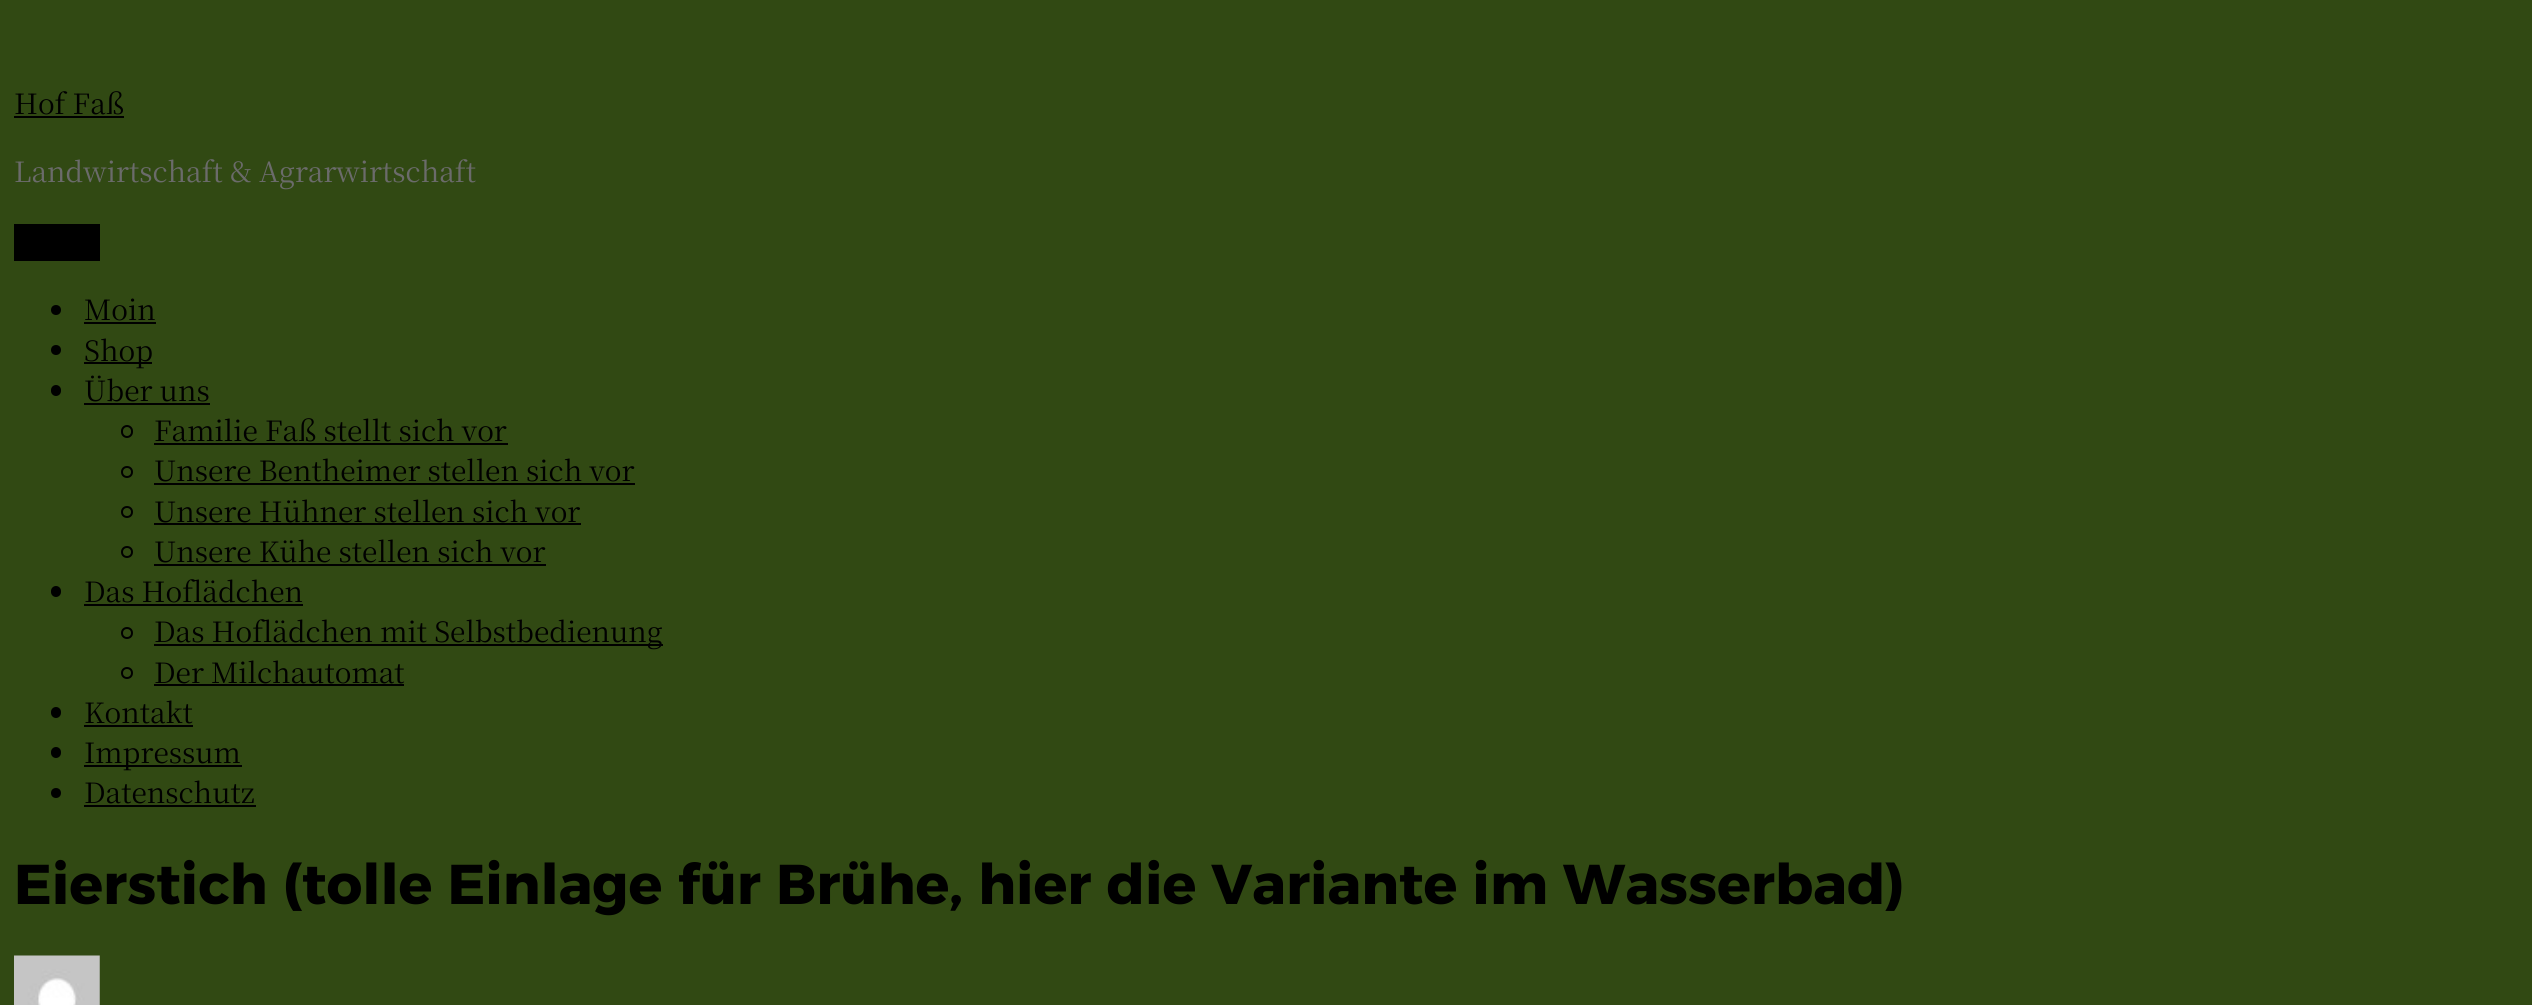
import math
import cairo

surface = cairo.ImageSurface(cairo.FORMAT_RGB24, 2532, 1005)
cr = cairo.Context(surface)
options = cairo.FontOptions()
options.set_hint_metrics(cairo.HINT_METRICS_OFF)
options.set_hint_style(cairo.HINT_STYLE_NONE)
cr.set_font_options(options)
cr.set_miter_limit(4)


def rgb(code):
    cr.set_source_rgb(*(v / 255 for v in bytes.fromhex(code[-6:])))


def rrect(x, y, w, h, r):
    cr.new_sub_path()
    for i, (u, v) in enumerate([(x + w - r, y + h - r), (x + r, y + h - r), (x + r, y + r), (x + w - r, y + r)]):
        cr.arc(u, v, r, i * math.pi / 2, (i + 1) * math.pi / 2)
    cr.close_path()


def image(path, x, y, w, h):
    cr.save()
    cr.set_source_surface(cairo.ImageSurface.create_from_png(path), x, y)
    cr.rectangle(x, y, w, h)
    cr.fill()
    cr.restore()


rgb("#314913")
cr.paint()
rgb("#000000")
cr.rectangle(14, 116, 110, 2)
cr.fill()
cr.rectangle(14, 224, 86, 37)
cr.fill()
cr.arc(56, 310, 5, 0, 2 * math.pi)
cr.fill()
cr.rectangle(84, 322, 72, 2)
cr.fill()
cr.arc(56, 350, 5, 0, 2 * math.pi)
cr.fill()
cr.rectangle(84, 362, 68, 2)
cr.fill()
rrect(51, 385, 10, 11, 5)
cr.fill()
cr.rectangle(84, 403, 126, 2)
cr.fill()
rrect(122, 426, 10, 11, 5)
cr.stroke()
cr.rectangle(154, 443, 354, 2)
cr.fill()
cr.arc(127, 472, 5, 0, 2 * math.pi)
cr.stroke()
cr.rectangle(154, 483, 481, 2)
cr.fill()
cr.arc(127, 512, 5, 0, 2 * math.pi)
cr.stroke()
cr.rectangle(154, 523, 427, 2)
cr.fill()
cr.arc(127, 552, 5, 0, 2 * math.pi)
cr.stroke()
cr.rectangle(154, 564, 392, 2)
cr.fill()
rrect(51, 586, 10, 11, 5)
cr.fill()
cr.rectangle(84, 604, 219, 2)
cr.fill()
cr.arc(127, 633, 5, 0, 2 * math.pi)
cr.stroke()
cr.rectangle(154, 644, 509, 2)
cr.fill()
cr.arc(127, 673, 5, 0, 2 * math.pi)
cr.stroke()
cr.rectangle(154, 684, 250, 2)
cr.fill()
rrect(51, 707, 10, 11, 5)
cr.fill()
cr.rectangle(84, 725, 109, 2)
cr.fill()
rrect(51, 747, 10, 11, 5)
cr.fill()
cr.rectangle(84, 765, 158, 2)
cr.fill()
cr.arc(56, 793, 5, 0, 2 * math.pi)
cr.fill()
cr.rectangle(84, 805, 172, 2)
cr.fill()
image("img/1.png", 14, 955, 86, 50)
cr.select_font_face("Noto Serif JP")
cr.set_font_size(28)
cr.move_to(14, 114)
cr.show_text("Hof Faß")
rgb("#6b6b6b")
cr.move_to(14, 182)
cr.show_text("Landwirtschaft & Agrarwirtschaft")
rgb("#000000")
for x, y, s in [
    (84, 320, "Moin"),
    (84, 361, "Shop"),
    (84, 401, "Über uns"),
    (154, 441, "Familie Faß stellt sich vor"),
    (154, 481, "Unsere Bentheimer stellen sich vor"),
    (154, 522, "Unsere Hühner stellen sich vor"),
    (154, 562, "Unsere Kühe stellen sich vor"),
    (84, 602, "Das Hoflädchen"),
    (154, 642, "Das Hoflädchen mit Selbstbedienung"),
    (154, 683, "Der Milchautomat"),
    (84, 723, "Kontakt"),
    (84, 763, "Impressum"),
    (84, 803, "Datenschutz"),
]:
    cr.move_to(x, y)
    cr.show_text(s)
cr.select_font_face("Alexandria", cairo.FONT_SLANT_NORMAL, cairo.FONT_WEIGHT_BOLD)
cr.set_font_size(56)
cr.move_to(14, 904)
cr.show_text("Eierstich (tolle Einlage für Brühe, hier die Variante im Wasserbad)")
surface.write_to_png("page.png")
